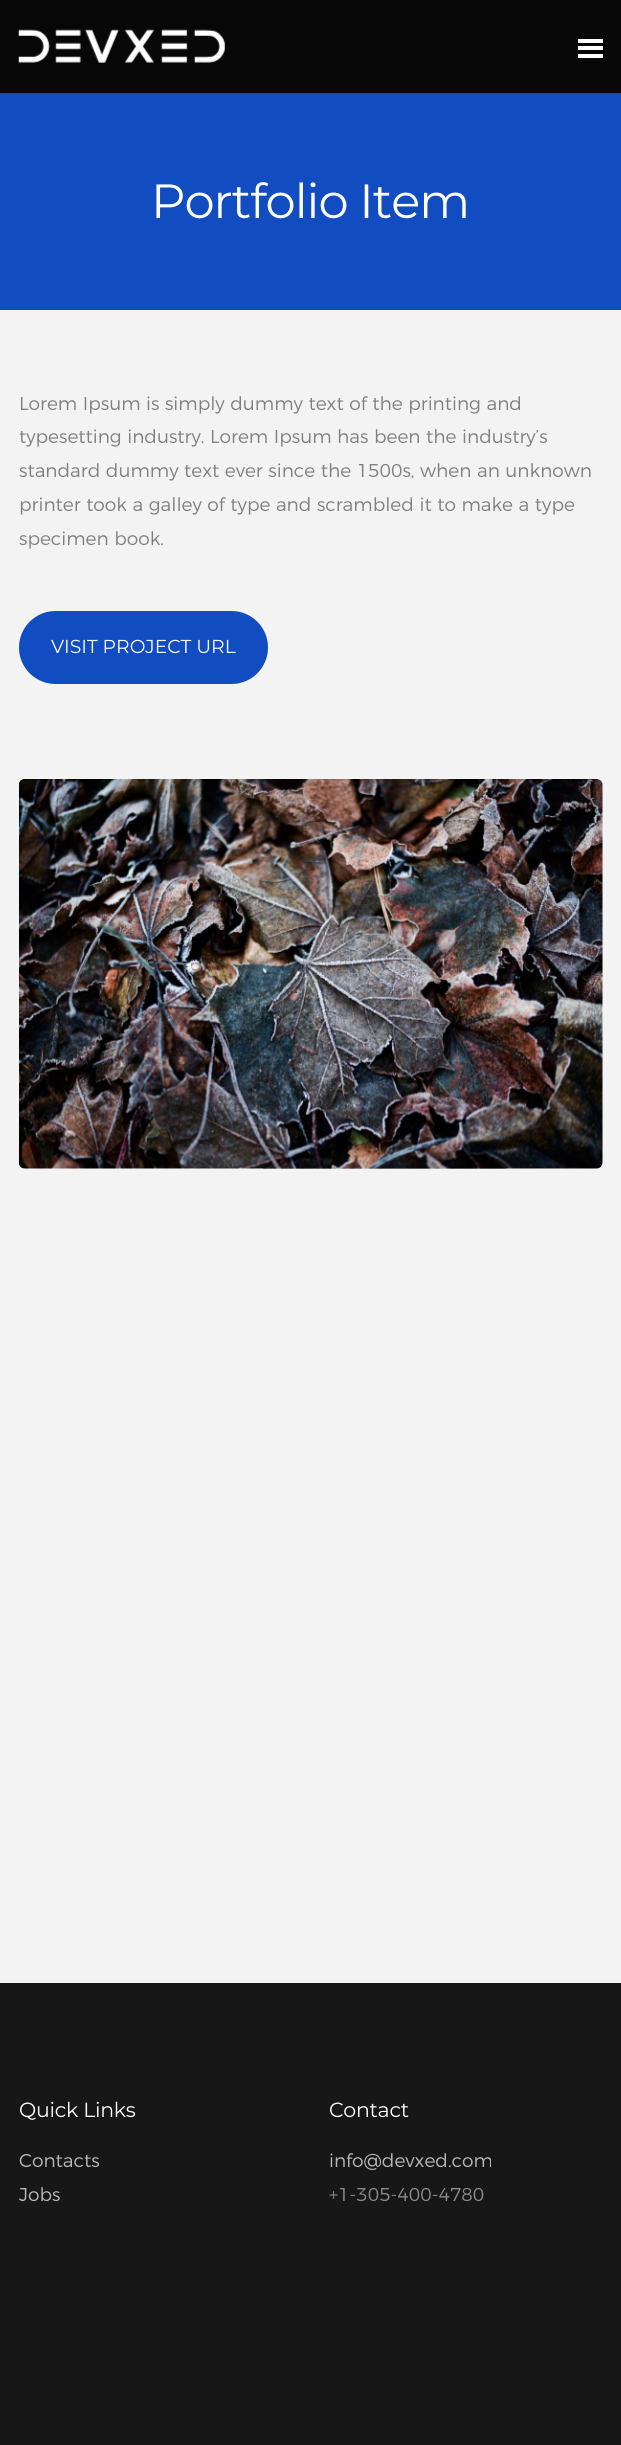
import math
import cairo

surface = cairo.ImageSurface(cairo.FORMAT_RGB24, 621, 2445)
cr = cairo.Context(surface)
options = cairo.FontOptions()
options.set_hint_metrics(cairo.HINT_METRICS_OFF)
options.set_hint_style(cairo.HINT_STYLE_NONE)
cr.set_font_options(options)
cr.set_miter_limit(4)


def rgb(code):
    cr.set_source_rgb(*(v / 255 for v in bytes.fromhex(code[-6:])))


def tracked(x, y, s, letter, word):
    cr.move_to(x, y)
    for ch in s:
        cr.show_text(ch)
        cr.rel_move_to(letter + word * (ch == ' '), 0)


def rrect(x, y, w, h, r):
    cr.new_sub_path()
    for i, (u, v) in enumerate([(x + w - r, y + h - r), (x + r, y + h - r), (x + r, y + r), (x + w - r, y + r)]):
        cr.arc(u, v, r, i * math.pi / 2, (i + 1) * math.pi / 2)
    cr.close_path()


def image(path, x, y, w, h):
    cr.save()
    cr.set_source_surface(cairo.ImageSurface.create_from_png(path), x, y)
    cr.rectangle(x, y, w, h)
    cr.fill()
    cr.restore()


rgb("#f3f3f3")
cr.paint()
rgb("#070707")
cr.rectangle(0, 0, 621, 93)
cr.fill()
image("img/1.png", 18, 29, 207, 34)
for x, y, w, h, color in [
    (578, 46, 25, 4, "#ffffff"),
    (578, 39, 25, 4, "#ffffff"),
    (578, 54, 25, 4, "#ffffff"),
    (0, 93, 621, 217, "#114cc1"),
]:
    rgb(color)
    cr.rectangle(x, y, w, h)
    cr.fill()
rrect(19, 611, 249, 73, 36.5)
cr.fill()
image("img/2.png", 19, 779, 584, 390)
rgb("#171717")
cr.rectangle(0, 1983, 621, 462)
cr.fill()
cr.select_font_face("Montserrat")
cr.set_font_size(48)
rgb("#ffffff")
tracked(151, 218, "Portfolio Item", -1, 0)
cr.select_font_face("Montserrat Light")
cr.set_font_size(18.75)
rgb("#808080")
for x, y, s in [
    (19, 410, "Lorem Ipsum is simply dummy text of the printing and"),
    (19, 443, "typesetting industry. Lorem Ipsum has been the industry’s"),
    (19, 477, "standard dummy text ever since the 1500s, when an unknown"),
    (19, 511, "printer took a galley of type and scrambled it to make a type"),
    (19, 545, "specimen book."),
]:
    cr.move_to(x, y)
    cr.show_text(s)
cr.select_font_face("Montserrat")
rgb("#ffffff")
cr.move_to(51, 653)
cr.show_text("VISIT PROJECT URL")
cr.set_font_size(20.5)
tracked(19, 2117, "Quick Links", -0.25, 0)
cr.select_font_face("Montserrat Light")
cr.set_font_size(18.75)
rgb("#b9b9b9")
cr.move_to(19, 2167)
cr.show_text("Contacts")
cr.move_to(19, 2201)
cr.show_text("Jobs")
cr.select_font_face("Montserrat")
cr.set_font_size(20.5)
rgb("#ffffff")
tracked(329, 2117, "Contact", -0.25, 0)
cr.select_font_face("Montserrat Light")
cr.set_font_size(18.75)
rgb("#b9b9b9")
cr.move_to(329, 2167)
cr.show_text("info@devxed.com")
rgb("#8b8b8b")
cr.move_to(329, 2201)
cr.show_text("+1-305-400-4780")
surface.write_to_png("page.png")
